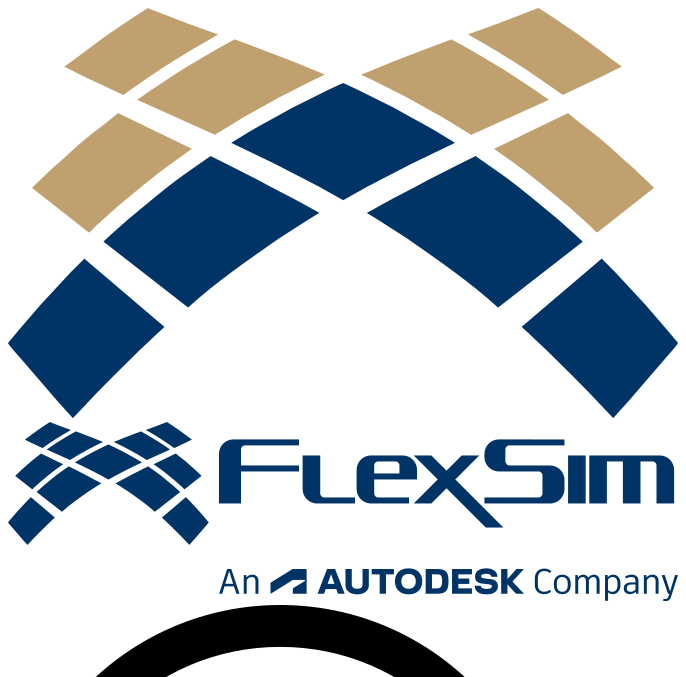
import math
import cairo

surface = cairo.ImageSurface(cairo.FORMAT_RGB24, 686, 677)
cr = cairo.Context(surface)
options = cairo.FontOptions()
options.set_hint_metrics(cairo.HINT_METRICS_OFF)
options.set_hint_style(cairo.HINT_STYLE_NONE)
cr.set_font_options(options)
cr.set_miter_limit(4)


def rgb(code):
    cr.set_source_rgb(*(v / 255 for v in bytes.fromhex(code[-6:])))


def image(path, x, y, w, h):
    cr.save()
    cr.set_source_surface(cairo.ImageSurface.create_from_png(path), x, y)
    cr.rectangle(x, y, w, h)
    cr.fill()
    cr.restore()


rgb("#ffffff")
cr.paint()
image("img/1.png", 8, 8, 670, 410)
image("img/2.png", 8, 422, 670, 179)
image("img/3.png", 95, 605, 370, 72)
surface.write_to_png("page.png")
